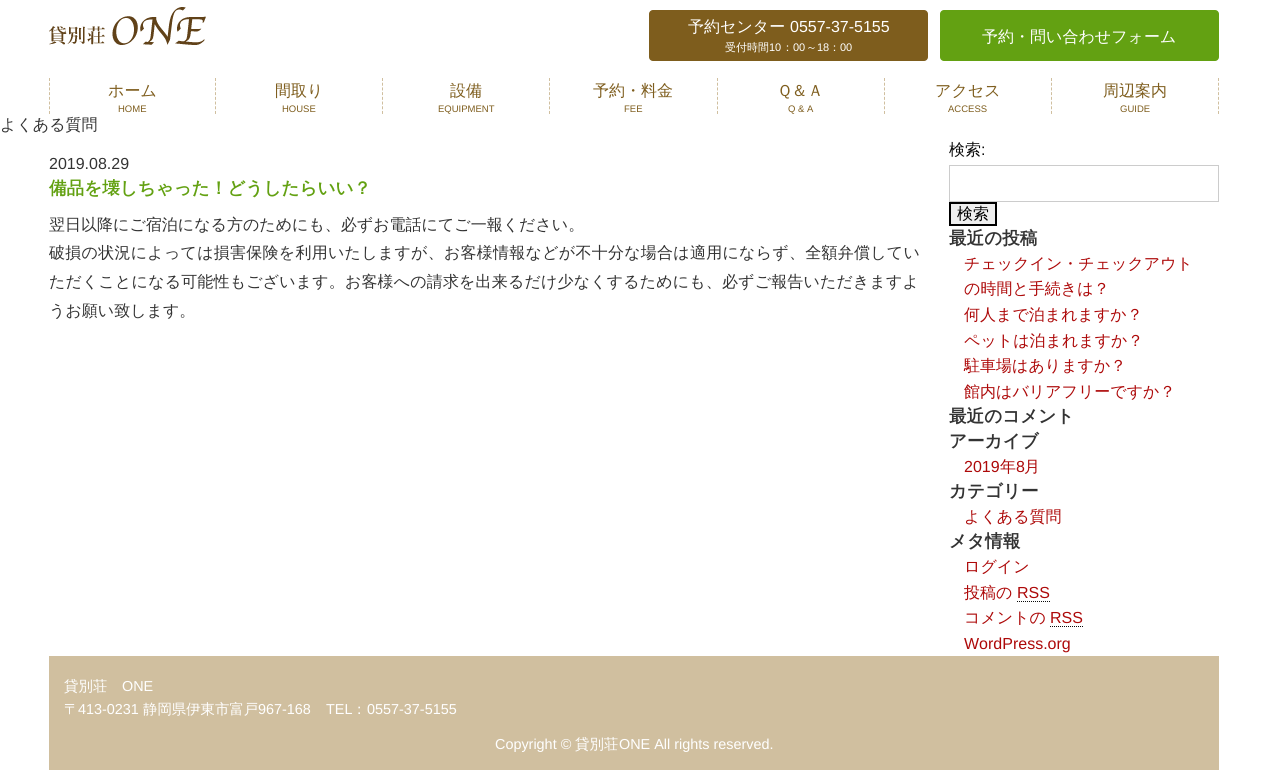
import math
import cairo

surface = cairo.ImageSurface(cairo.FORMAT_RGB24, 1268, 770)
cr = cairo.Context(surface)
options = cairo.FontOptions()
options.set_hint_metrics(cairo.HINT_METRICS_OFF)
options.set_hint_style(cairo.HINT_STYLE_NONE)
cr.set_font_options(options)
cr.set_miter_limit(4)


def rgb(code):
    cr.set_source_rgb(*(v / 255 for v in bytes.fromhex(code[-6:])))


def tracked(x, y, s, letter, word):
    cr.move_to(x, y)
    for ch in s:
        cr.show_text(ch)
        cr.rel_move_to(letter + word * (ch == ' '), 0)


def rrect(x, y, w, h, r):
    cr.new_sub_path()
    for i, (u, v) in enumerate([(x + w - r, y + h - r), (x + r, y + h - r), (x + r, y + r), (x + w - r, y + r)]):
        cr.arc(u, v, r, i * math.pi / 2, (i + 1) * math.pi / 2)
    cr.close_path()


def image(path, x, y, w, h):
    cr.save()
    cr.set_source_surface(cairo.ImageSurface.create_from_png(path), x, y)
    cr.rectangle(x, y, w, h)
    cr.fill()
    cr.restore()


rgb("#ffffff")
cr.paint()
image("img/1.png", 49, 7, 157, 38)
rgb("#7e5d1d")
rrect(649, 10, 279, 51, 4)
cr.fill()
rgb("#63a112")
rrect(940, 10, 279, 51, 4)
cr.fill()
cr.new_path()
cr.move_to(215.5, 78)
cr.line_to(215.5, 114)
rgb("#d0bf9f")
cr.set_line_width(1)
cr.set_dash([3, 1.71])
cr.stroke()
cr.new_path()
cr.move_to(49.5, 78)
cr.line_to(49.5, 114)
cr.stroke()
cr.new_path()
cr.move_to(382.5, 78)
cr.line_to(382.5, 114)
cr.stroke()
cr.new_path()
cr.move_to(549.5, 78)
cr.line_to(549.5, 114)
cr.stroke()
cr.new_path()
cr.move_to(717.5, 78)
cr.line_to(717.5, 114)
cr.stroke()
cr.new_path()
cr.move_to(884.5, 78)
cr.line_to(884.5, 114)
cr.stroke()
cr.new_path()
cr.move_to(1051.5, 78)
cr.line_to(1051.5, 114)
cr.stroke()
cr.new_path()
cr.move_to(1218.5, 78)
cr.line_to(1218.5, 114)
cr.stroke()
cr.rectangle(949.5, 165.5, 269, 36)
rgb("#cccccc")
cr.set_dash([])
cr.stroke()
rgb("#efefef")
cr.rectangle(950, 203, 46, 22)
cr.fill_preserve()
rgb("#000000")
cr.set_line_width(2)
cr.stroke()
cr.new_path()
cr.move_to(1017, 601.5)
cr.line_to(1050, 601.5)
rgb("#0a0a0a")
cr.set_line_width(1)
cr.set_dash([1, 1])
cr.stroke()
cr.new_path()
cr.move_to(1050, 626.5)
cr.line_to(1083, 626.5)
cr.stroke()
rgb("#d0bf9f")
cr.rectangle(49, 656, 1170, 114)
cr.fill()
cr.select_font_face("WenQuanYi Zen Hei Medium")
cr.set_font_size(16)
rgb("#ffffff")
cr.move_to(688, 32)
cr.show_text("予約センター")
cr.select_font_face("Liberation Sans")
cr.move_to(790, 32)
cr.show_text("0557-37-5155")
cr.select_font_face("WenQuanYi Zen Hei Medium")
cr.set_font_size(11)
cr.move_to(725, 51)
cr.show_text("受付時間")
cr.select_font_face("Liberation Sans")
cr.move_to(769, 51)
cr.show_text("10")
cr.select_font_face("WenQuanYi Zen Hei Medium")
cr.move_to(782, 51)
cr.show_text("：")
cr.select_font_face("Liberation Sans")
cr.move_to(793, 51)
cr.show_text("00")
cr.select_font_face("WenQuanYi Zen Hei Medium")
cr.move_to(806, 51)
cr.show_text("～")
cr.select_font_face("Liberation Sans")
cr.move_to(817, 51)
cr.show_text("18")
cr.select_font_face("WenQuanYi Zen Hei Medium")
cr.move_to(829, 51)
cr.show_text("：")
cr.select_font_face("Liberation Sans")
cr.move_to(840, 51)
cr.show_text("00")
cr.select_font_face("WenQuanYi Zen Hei Medium")
cr.set_font_size(16)
cr.move_to(982, 42)
cr.show_text("予約・問い合わせフォーム")
rgb("#7e5d1d")
cr.move_to(108, 96)
cr.show_text("ホーム")
cr.select_font_face("Liberation Sans")
cr.set_font_size(9.5)
cr.move_to(118, 112)
cr.show_text("HOME")
cr.select_font_face("WenQuanYi Zen Hei Medium")
cr.set_font_size(16)
cr.move_to(275, 96)
cr.show_text("間取り")
cr.select_font_face("Liberation Sans")
cr.set_font_size(9.5)
cr.move_to(282, 112)
cr.show_text("HOUSE")
cr.select_font_face("WenQuanYi Zen Hei Medium")
cr.set_font_size(16)
cr.move_to(450, 96)
cr.show_text("設備")
cr.select_font_face("Liberation Sans")
cr.set_font_size(9.5)
cr.move_to(438, 112)
cr.show_text("EQUIPMENT")
cr.select_font_face("WenQuanYi Zen Hei Medium")
cr.set_font_size(16)
cr.move_to(593, 96)
cr.show_text("予約・料金")
cr.select_font_face("Liberation Sans")
cr.set_font_size(9.5)
cr.move_to(624, 112)
cr.show_text("FEE")
cr.select_font_face("WenQuanYi Zen Hei Medium")
cr.set_font_size(16)
cr.move_to(777, 96)
cr.show_text("Ｑ＆Ａ")
cr.select_font_face("Liberation Sans")
cr.set_font_size(9.5)
cr.move_to(788, 112)
cr.show_text("Q & A")
cr.select_font_face("WenQuanYi Zen Hei Medium")
cr.set_font_size(16)
cr.move_to(935, 96)
cr.show_text("アクセス")
cr.select_font_face("Liberation Sans")
cr.set_font_size(9.5)
cr.move_to(948, 112)
cr.show_text("ACCESS")
cr.select_font_face("WenQuanYi Zen Hei Medium")
cr.set_font_size(16)
cr.move_to(1103, 96)
cr.show_text("周辺案内")
cr.select_font_face("Liberation Sans")
cr.set_font_size(9.5)
cr.move_to(1120, 112)
cr.show_text("GUIDE")
cr.select_font_face("WenQuanYi Zen Hei Medium")
cr.set_font_size(16)
rgb("#333333")
cr.move_to(0, 130)
cr.show_text("よくある質問")
cr.select_font_face("Liberation Sans")
cr.move_to(49, 169)
cr.show_text("2019.08.29")
cr.select_font_face("WenQuanYi Zen Hei", cairo.FONT_SLANT_NORMAL, cairo.FONT_WEIGHT_BOLD)
cr.set_font_size(17.6)
rgb("#63a112")
cr.move_to(49, 194)
cr.show_text("備品を壊しちゃった！どうしたらいい？")
cr.select_font_face("WenQuanYi Zen Hei Medium")
cr.set_font_size(16)
rgb("#333333")
cr.move_to(49, 230)
cr.show_text("翌日以降にご宿泊になる方のためにも、必ずお電話にてご一報ください。")
tracked(49, 258, "破損の状況によっては損害保険を利用いたしますが、お客様情報などが不十分な場合は適用にならず、全額弁償してい", 0.25, 0)
tracked(49, 287, "ただくことになる可能性もございます。お客様への請求を出来るだけ少なくするためにも、必ずご報告いただきますよ", 0.15, 0)
cr.move_to(49, 316)
cr.show_text("うお願い致します。")
rgb("#0a0a0a")
cr.move_to(949, 155)
cr.show_text("検索")
cr.select_font_face("Liberation Sans")
cr.move_to(981, 155)
cr.show_text(":")
cr.select_font_face("WenQuanYi Zen Hei Medium")
rgb("#000000")
cr.move_to(957, 219)
cr.show_text("検索")
cr.select_font_face("WenQuanYi Zen Hei", cairo.FONT_SLANT_NORMAL, cairo.FONT_WEIGHT_BOLD)
cr.set_font_size(17.6)
rgb("#333333")
cr.move_to(949, 244)
cr.show_text("最近の投稿")
cr.select_font_face("WenQuanYi Zen Hei Medium")
cr.set_font_size(16)
rgb("#ad0909")
for x, y, s in [
    (964, 269, "チェックイン・チェックアウト"),
    (964, 294, "の時間と手続きは？"),
    (964, 320, "何人まで泊まれますか？"),
    (964, 346, "ペットは泊まれますか？"),
    (964, 371, "駐車場はありますか？"),
    (964, 397, "館内はバリアフリーですか？"),
]:
    cr.move_to(x, y)
    cr.show_text(s)
cr.select_font_face("WenQuanYi Zen Hei", cairo.FONT_SLANT_NORMAL, cairo.FONT_WEIGHT_BOLD)
cr.set_font_size(17.6)
rgb("#333333")
cr.move_to(949, 422)
cr.show_text("最近のコメント")
cr.move_to(949, 447)
cr.show_text("アーカイブ")
cr.select_font_face("Liberation Sans")
cr.set_font_size(16)
rgb("#ad0909")
cr.move_to(964, 472)
cr.show_text("2019")
cr.select_font_face("WenQuanYi Zen Hei Medium")
cr.move_to(1000, 472)
cr.show_text("年")
cr.select_font_face("Liberation Sans")
cr.move_to(1016, 472)
cr.show_text("8")
cr.select_font_face("WenQuanYi Zen Hei Medium")
cr.move_to(1024, 472)
cr.show_text("月")
cr.select_font_face("WenQuanYi Zen Hei", cairo.FONT_SLANT_NORMAL, cairo.FONT_WEIGHT_BOLD)
cr.set_font_size(17.6)
rgb("#333333")
cr.move_to(949, 497)
cr.show_text("カテゴリー")
cr.select_font_face("WenQuanYi Zen Hei Medium")
cr.set_font_size(16)
rgb("#ad0909")
cr.move_to(964, 522)
cr.show_text("よくある質問")
cr.select_font_face("WenQuanYi Zen Hei", cairo.FONT_SLANT_NORMAL, cairo.FONT_WEIGHT_BOLD)
cr.set_font_size(17.6)
rgb("#333333")
cr.move_to(949, 547)
cr.show_text("メタ情報")
cr.select_font_face("WenQuanYi Zen Hei Medium")
cr.set_font_size(16)
rgb("#ad0909")
cr.move_to(964, 572)
cr.show_text("ログイン")
cr.move_to(964, 598)
cr.show_text("投稿の")
cr.select_font_face("Liberation Sans")
cr.move_to(1017, 598)
cr.show_text("RSS")
cr.select_font_face("WenQuanYi Zen Hei Medium")
cr.move_to(964, 623)
cr.show_text("コメントの")
cr.select_font_face("Liberation Sans")
cr.move_to(1050, 623)
cr.show_text("RSS")
cr.move_to(964, 649)
cr.show_text("WordPress.org")
cr.select_font_face("WenQuanYi Zen Hei Medium")
cr.set_font_size(14.4)
rgb("#ffffff")
cr.move_to(64, 691)
cr.show_text("貸別荘")
cr.select_font_face("Liberation Sans")
cr.move_to(122, 691)
cr.show_text("ONE")
cr.select_font_face("WenQuanYi Zen Hei Medium")
cr.move_to(64, 714)
cr.show_text("〒")
cr.select_font_face("Liberation Sans")
cr.move_to(78, 714)
cr.show_text("413-0231")
cr.select_font_face("WenQuanYi Zen Hei Medium")
cr.move_to(143, 714)
cr.show_text("静岡県伊東市富戸")
cr.select_font_face("Liberation Sans")
cr.move_to(258, 714)
cr.show_text("967-168")
cr.move_to(326, 714)
cr.show_text("TEL")
cr.select_font_face("WenQuanYi Zen Hei Medium")
cr.move_to(352, 714)
cr.show_text("：")
cr.select_font_face("Liberation Sans")
cr.move_to(367, 714)
cr.show_text("0557-37-5155")
cr.move_to(495, 749)
cr.show_text("Copyright ©")
cr.select_font_face("WenQuanYi Zen Hei Medium")
cr.move_to(575, 749)
cr.show_text("貸別荘")
cr.select_font_face("Liberation Sans")
cr.move_to(619, 749)
cr.show_text("ONE All rights reserved.")
surface.write_to_png("page.png")
